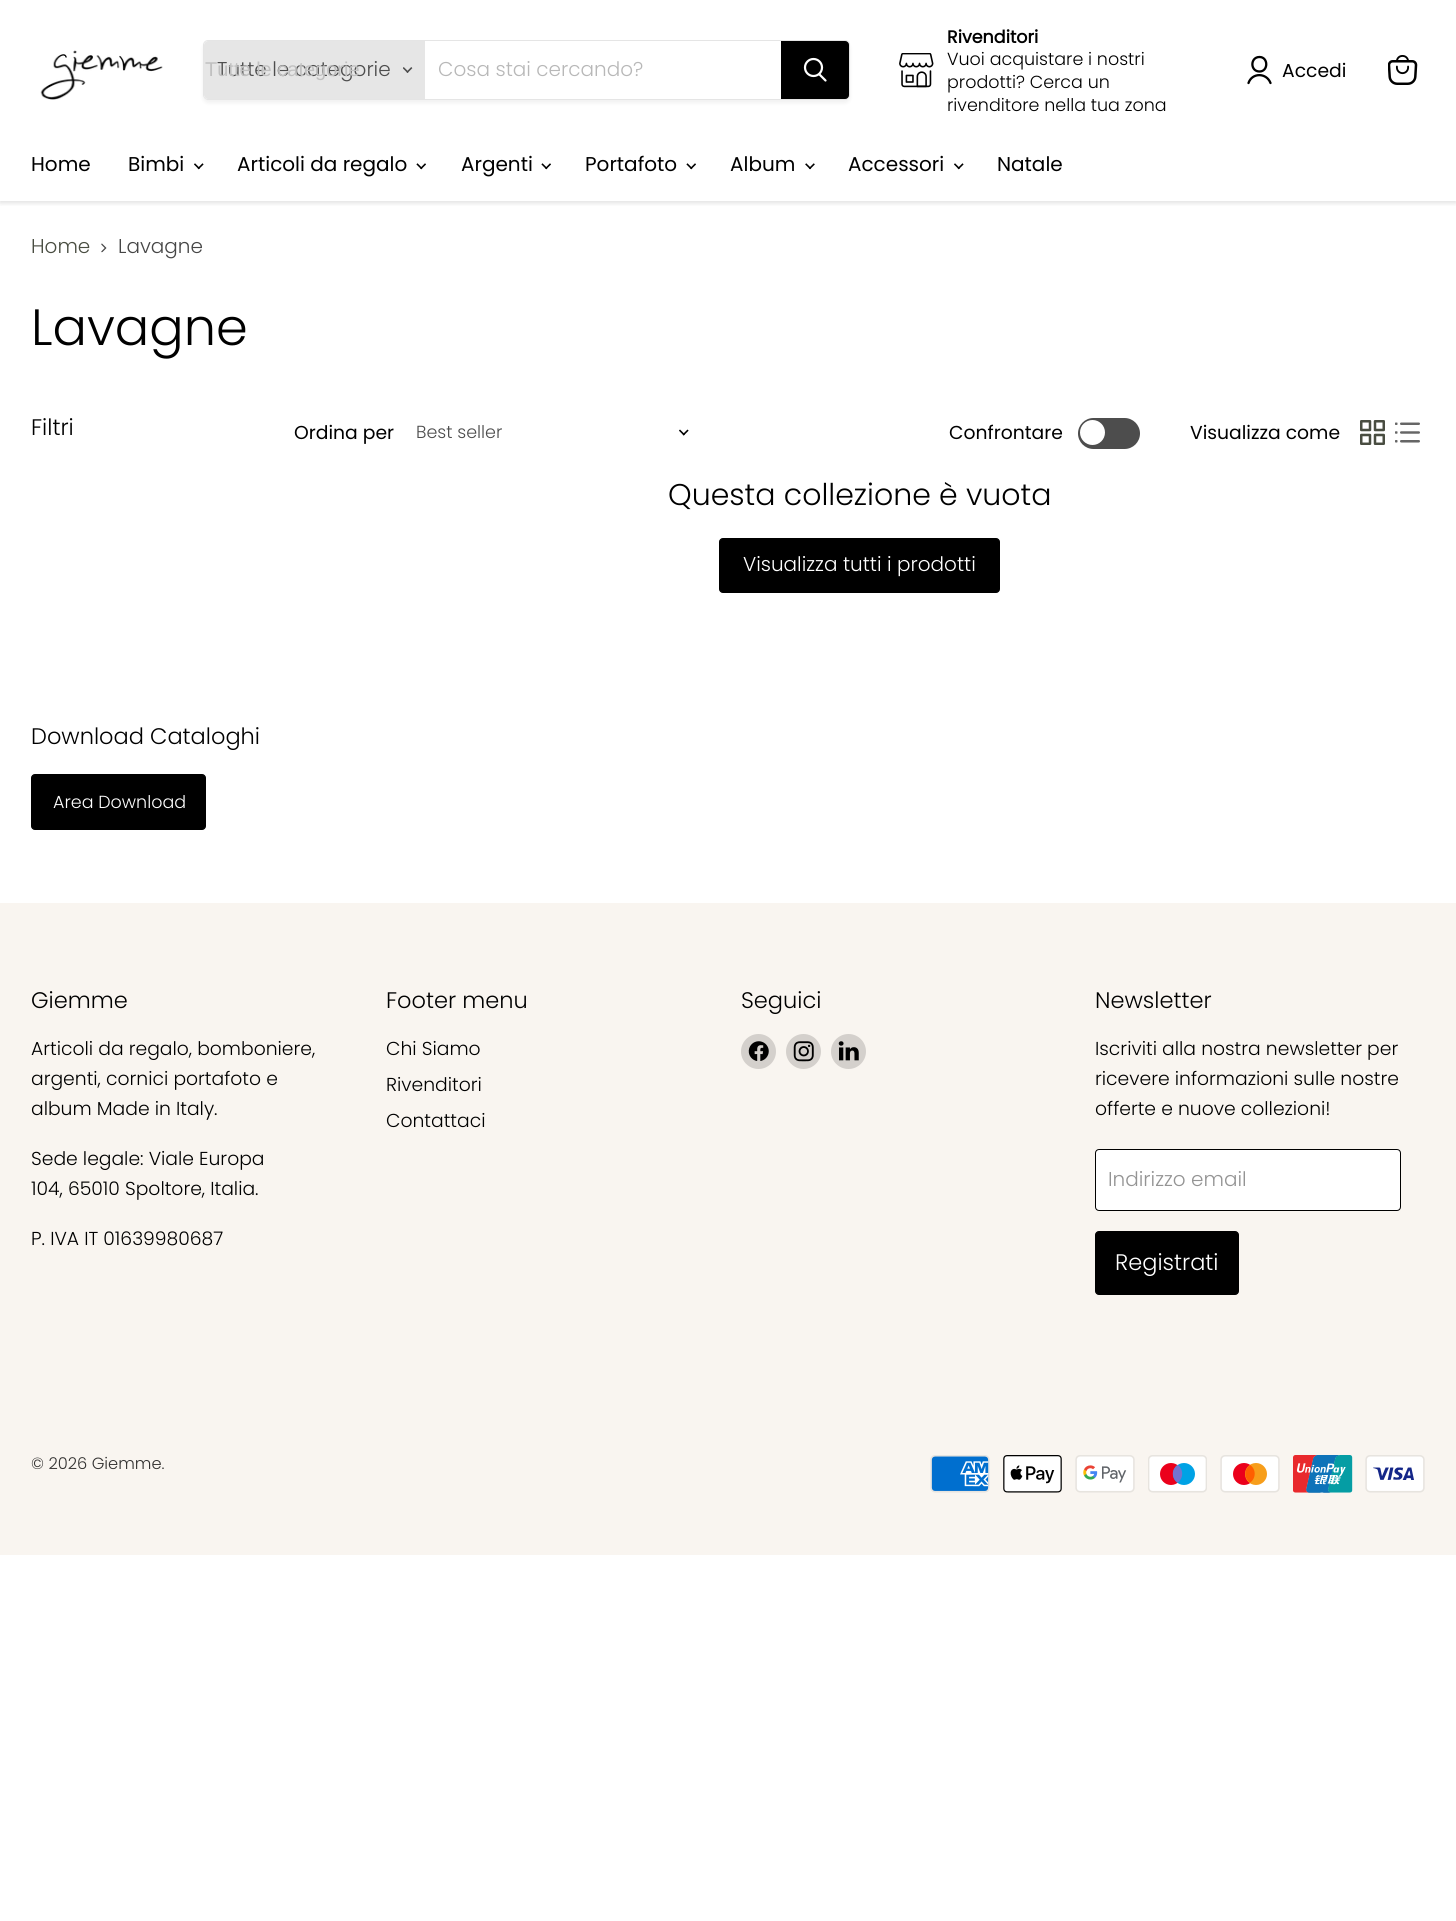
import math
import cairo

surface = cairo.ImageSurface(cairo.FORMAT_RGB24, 1456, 1921)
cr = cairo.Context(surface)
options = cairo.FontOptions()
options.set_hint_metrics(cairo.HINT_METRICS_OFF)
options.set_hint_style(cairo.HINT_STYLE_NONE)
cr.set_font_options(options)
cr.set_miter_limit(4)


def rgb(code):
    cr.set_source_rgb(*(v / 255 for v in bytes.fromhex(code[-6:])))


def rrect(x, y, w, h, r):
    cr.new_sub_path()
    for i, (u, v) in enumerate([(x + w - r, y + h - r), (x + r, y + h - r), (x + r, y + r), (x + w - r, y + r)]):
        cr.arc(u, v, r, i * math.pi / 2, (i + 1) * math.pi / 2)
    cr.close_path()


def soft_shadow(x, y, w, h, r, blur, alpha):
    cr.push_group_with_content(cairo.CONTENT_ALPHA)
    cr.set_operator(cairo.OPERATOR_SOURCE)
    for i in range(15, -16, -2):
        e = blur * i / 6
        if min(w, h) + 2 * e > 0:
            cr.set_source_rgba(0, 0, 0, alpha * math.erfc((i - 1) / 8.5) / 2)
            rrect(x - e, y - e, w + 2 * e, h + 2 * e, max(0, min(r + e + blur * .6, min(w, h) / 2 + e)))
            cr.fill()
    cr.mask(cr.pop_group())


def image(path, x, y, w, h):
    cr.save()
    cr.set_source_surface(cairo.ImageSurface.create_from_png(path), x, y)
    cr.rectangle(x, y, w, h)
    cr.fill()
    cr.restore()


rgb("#ffffff")
cr.paint()
cr.save()
cr.rectangle(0, 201, 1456, 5)
cr.clip()
rgb("#808080")
soft_shadow(0, 1, 1456, 202, 0, 2.5, 0.25)
cr.restore()
image("img/1.png", 40, 50, 123, 50)
cr.save()
cr.set_fill_rule(cairo.FILL_RULE_EVEN_ODD)
cr.new_path()
cr.move_to(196, 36)
cr.line_to(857, 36)
cr.line_to(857, 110)
cr.line_to(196, 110)
cr.close_path()
cr.move_to(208, 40)
cr.line_to(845, 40)
cr.curve_to(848, 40, 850, 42, 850, 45)
cr.line_to(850, 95)
cr.curve_to(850, 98, 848, 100, 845, 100)
cr.line_to(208, 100)
cr.curve_to(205, 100, 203, 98, 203, 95)
cr.line_to(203, 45)
cr.curve_to(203, 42, 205, 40, 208, 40)
cr.close_path()
cr.clip()
rgb("#808080")
soft_shadow(203, 43, 647, 60, 5, 2, 0.11)
cr.restore()
rrect(203.5, 40.5, 646, 59, 4.5)
cr.set_source_rgba(0.502, 0.502, 0.502, 0.2)
cr.set_line_width(1)
cr.stroke()
rgb("#e6e6e6")
cr.new_path()
cr.move_to(208, 41)
cr.line_to(425, 41)
cr.line_to(425, 99)
cr.line_to(208, 99)
cr.curve_to(206, 99, 204, 97, 204, 95)
cr.line_to(204, 45)
cr.curve_to(204, 43, 206, 41, 208, 41)
cr.close_path()
cr.fill()
image("img/2.png", 403, 67, 10, 6)
rgb("#000000")
cr.new_path()
cr.move_to(781.5, 41.5)
cr.line_to(845, 41.5)
cr.curve_to(847, 41.5, 848.5, 43, 848.5, 45)
cr.line_to(848.5, 95)
cr.curve_to(848.5, 97, 847, 98.5, 845, 98.5)
cr.line_to(781.5, 98.5)
cr.close_path()
cr.fill_preserve()
cr.stroke()
cr.new_path()
cr.move_to(825.5, 80.5)
cr.line_to(819.5, 74.5)
rgb("#ffffff")
cr.set_line_width(2.2)
cr.set_line_cap(cairo.LINE_CAP_ROUND)
cr.stroke()
cr.arc(813.5, 67.5, 8.5, 0, 2 * math.pi)
cr.set_line_cap(cairo.LINE_CAP_BUTT)
cr.stroke()
image("img/3.png", 899, 53, 35, 35)
cr.new_path()
cr.move_to(1259.5, 71.5)
cr.curve_to(1268.5, 71.5, 1268.5, 57, 1259.5, 57)
cr.curve_to(1250, 57, 1250, 71.5, 1259.5, 71.5)
cr.close_path()
cr.move_to(1270.5, 83)
cr.curve_to(1266.5, 72.5, 1252, 72.5, 1248.5, 83)
rgb("#000000")
cr.set_line_width(2.3)
cr.set_line_cap(cairo.LINE_CAP_ROUND)
cr.set_line_join(cairo.LINE_JOIN_ROUND)
cr.stroke()
image("img/4.png", 1388, 55, 30, 30)
image("img/5.png", 194, 163, 10, 7)
image("img/6.png", 416, 163, 10, 7)
image("img/6.png", 541, 163, 10, 7)
image("img/6.png", 686, 163, 10, 7)
image("img/7.png", 805, 163, 10, 7)
image("img/5.png", 954, 163, 10, 7)
image("img/8.png", 101, 243, 6, 10)
image("img/9.png", 679, 429, 10, 7)
rgb("#4d4d4d")
rrect(1078, 418, 62, 31, 15.5)
cr.fill()
rgb("#ffffff")
cr.arc(1092.5, 432.5, 12.5, 0, 2 * math.pi)
cr.fill()
image("img/10.png", 1360, 420, 25, 25)
image("img/11.png", 1395, 422, 25, 21)
rgb("#000000")
rrect(719.5, 538.5, 280, 54, 3.5)
cr.fill_preserve()
cr.set_line_width(1)
cr.set_line_cap(cairo.LINE_CAP_BUTT)
cr.set_line_join(cairo.LINE_JOIN_MITER)
cr.stroke()
rrect(31.5, 774.5, 174, 55, 3.5)
cr.fill_preserve()
cr.stroke()
rgb("#f9f5f0")
cr.rectangle(0, 903, 1456, 652)
cr.fill()
rgb("#d4d0cc")
cr.arc(758.5, 1051.5, 17.5, 0, 2 * math.pi)
cr.fill()
image("img/12.png", 748, 1041, 21, 20)
cr.arc(803.5, 1051.5, 17.5, 0, 2 * math.pi)
cr.fill()
image("img/13.png", 793, 1041, 21, 21)
cr.arc(848.5, 1051.5, 17.5, 0, 2 * math.pi)
cr.fill()
image("img/14.png", 838, 1041, 21, 20)
rgb("#ffffff")
rrect(1095.5, 1149.5, 305, 61, 3.5)
cr.fill_preserve()
rgb("#000000")
cr.stroke()
rrect(1095.5, 1231.5, 143, 63, 3.5)
cr.fill_preserve()
cr.stroke()
image("img/15.png", 930, 1455, 60, 38)
image("img/16.png", 1003, 1455, 59, 38)
image("img/17.png", 1075, 1455, 60, 38)
image("img/18.png", 1148, 1455, 59, 38)
image("img/19.png", 1220, 1455, 60, 38)
image("img/20.png", 1293, 1455, 60, 38)
image("img/21.png", 1365, 1455, 60, 38)
cr.select_font_face("Poppins Light")
cr.set_font_size(20)
rgb("#4d4d4d")
cr.move_to(217, 76)
cr.show_text("Tutte le categorie")
cr.select_font_face("Liberation Sans")
rgb("#c0c0c0")
cr.move_to(205, 76)
cr.show_text("Tutte le categorie")
cr.select_font_face("Poppins Light")
rgb("#b8b8b8")
cr.move_to(438, 76)
cr.show_text("Cosa stai cercando?")
cr.select_font_face("Poppins", cairo.FONT_SLANT_NORMAL, cairo.FONT_WEIGHT_BOLD)
cr.set_font_size(17.5)
rgb("#000000")
cr.move_to(947, 43)
cr.show_text("Rivenditori")
cr.select_font_face("Poppins Light")
for x, y, s in [
    (947, 65, "Vuoi acquistare i nostri"),
    (947, 88, "prodotti? Cerca un"),
    (947, 111, "rivenditore nella tua zona"),
]:
    cr.move_to(x, y)
    cr.show_text(s)
cr.select_font_face("Poppins")
cr.set_font_size(18.75)
cr.move_to(1282, 77)
cr.show_text("Accedi")
cr.set_font_size(20)
for x, y, s in [
    (31, 171, "Home"),
    (128, 171, "Bimbi"),
    (237, 171, "Articoli da regalo"),
    (461, 171, "Argenti"),
    (585, 171, "Portafoto"),
    (730, 171, "Album"),
    (848, 171, "Accessori"),
    (997, 171, "Natale"),
]:
    cr.move_to(x, y)
    cr.show_text(s)
cr.select_font_face("Poppins Light")
rgb("#494d41")
cr.move_to(31, 253)
cr.show_text("Home")
rgb("#464646")
cr.move_to(118, 253)
cr.show_text("Lavagne")
cr.set_font_size(51)
rgb("#000000")
cr.move_to(31, 345)
cr.show_text("Lavagne")
cr.set_font_size(22.5)
cr.move_to(31, 435)
cr.show_text("Filtri")
cr.select_font_face("Poppins")
cr.set_font_size(18.75)
cr.move_to(294, 439)
cr.show_text("Ordina per")
cr.select_font_face("Poppins Light")
cr.set_font_size(17.5)
rgb("#4d4d4d")
cr.move_to(416, 438)
cr.show_text("Best seller")
cr.select_font_face("Poppins")
cr.set_font_size(18.75)
rgb("#000000")
cr.move_to(949, 439)
cr.show_text("Confrontare")
cr.move_to(1190, 439)
cr.show_text("Visualizza come")
cr.select_font_face("Poppins Light")
cr.set_font_size(30)
cr.move_to(668, 505)
cr.show_text("Questa collezione è vuota")
cr.set_font_size(20)
rgb("#ffffff")
cr.move_to(743, 571)
cr.show_text("Visualizza tutti i prodotti")
cr.set_font_size(22.5)
rgb("#000000")
cr.move_to(31, 744)
cr.show_text("Download Cataloghi")
cr.set_font_size(17.5)
rgb("#ffffff")
cr.move_to(53, 808)
cr.show_text("Area Download")
cr.set_font_size(22.5)
rgb("#000000")
cr.move_to(31, 1008)
cr.show_text("Giemme")
cr.set_font_size(18.75)
for x, y, s in [
    (31, 1055, "Articoli da regalo, bomboniere,"),
    (31, 1085, "argenti, cornici portafoto e"),
    (31, 1115, "album Made in Italy."),
    (31, 1165, "Sede legale: Viale Europa"),
    (31, 1195, "104, 65010 Spoltore, Italia."),
    (31, 1245, "P. IVA IT 01639980687"),
]:
    cr.move_to(x, y)
    cr.show_text(s)
cr.set_font_size(22.5)
cr.move_to(386, 1008)
cr.show_text("Footer menu")
cr.set_font_size(18.75)
for x, y, s in [
    (386, 1055, "Chi Siamo"),
    (386, 1091, "Rivenditori"),
    (386, 1127, "Contattaci"),
]:
    cr.move_to(x, y)
    cr.show_text(s)
cr.set_font_size(22.5)
cr.move_to(741, 1008)
cr.show_text("Seguici")
cr.move_to(1095, 1008)
cr.show_text("Newsletter")
cr.set_font_size(18.75)
for x, y, s in [
    (1095, 1055, "Iscriviti alla nostra newsletter per"),
    (1095, 1085, "ricevere informazioni sulle nostre"),
    (1095, 1115, "offerte e nuove collezioni!"),
]:
    cr.move_to(x, y)
    cr.show_text(s)
cr.set_font_size(20)
rgb("#949494")
cr.move_to(1108, 1186)
cr.show_text("Indirizzo email")
cr.set_font_size(22.5)
rgb("#ffffff")
cr.move_to(1115, 1270)
cr.show_text("Registrati")
cr.set_font_size(16.25)
rgb("#323130")
cr.move_to(31, 1469)
cr.show_text("© 2026 Giemme.")
surface.write_to_png("page.png")
